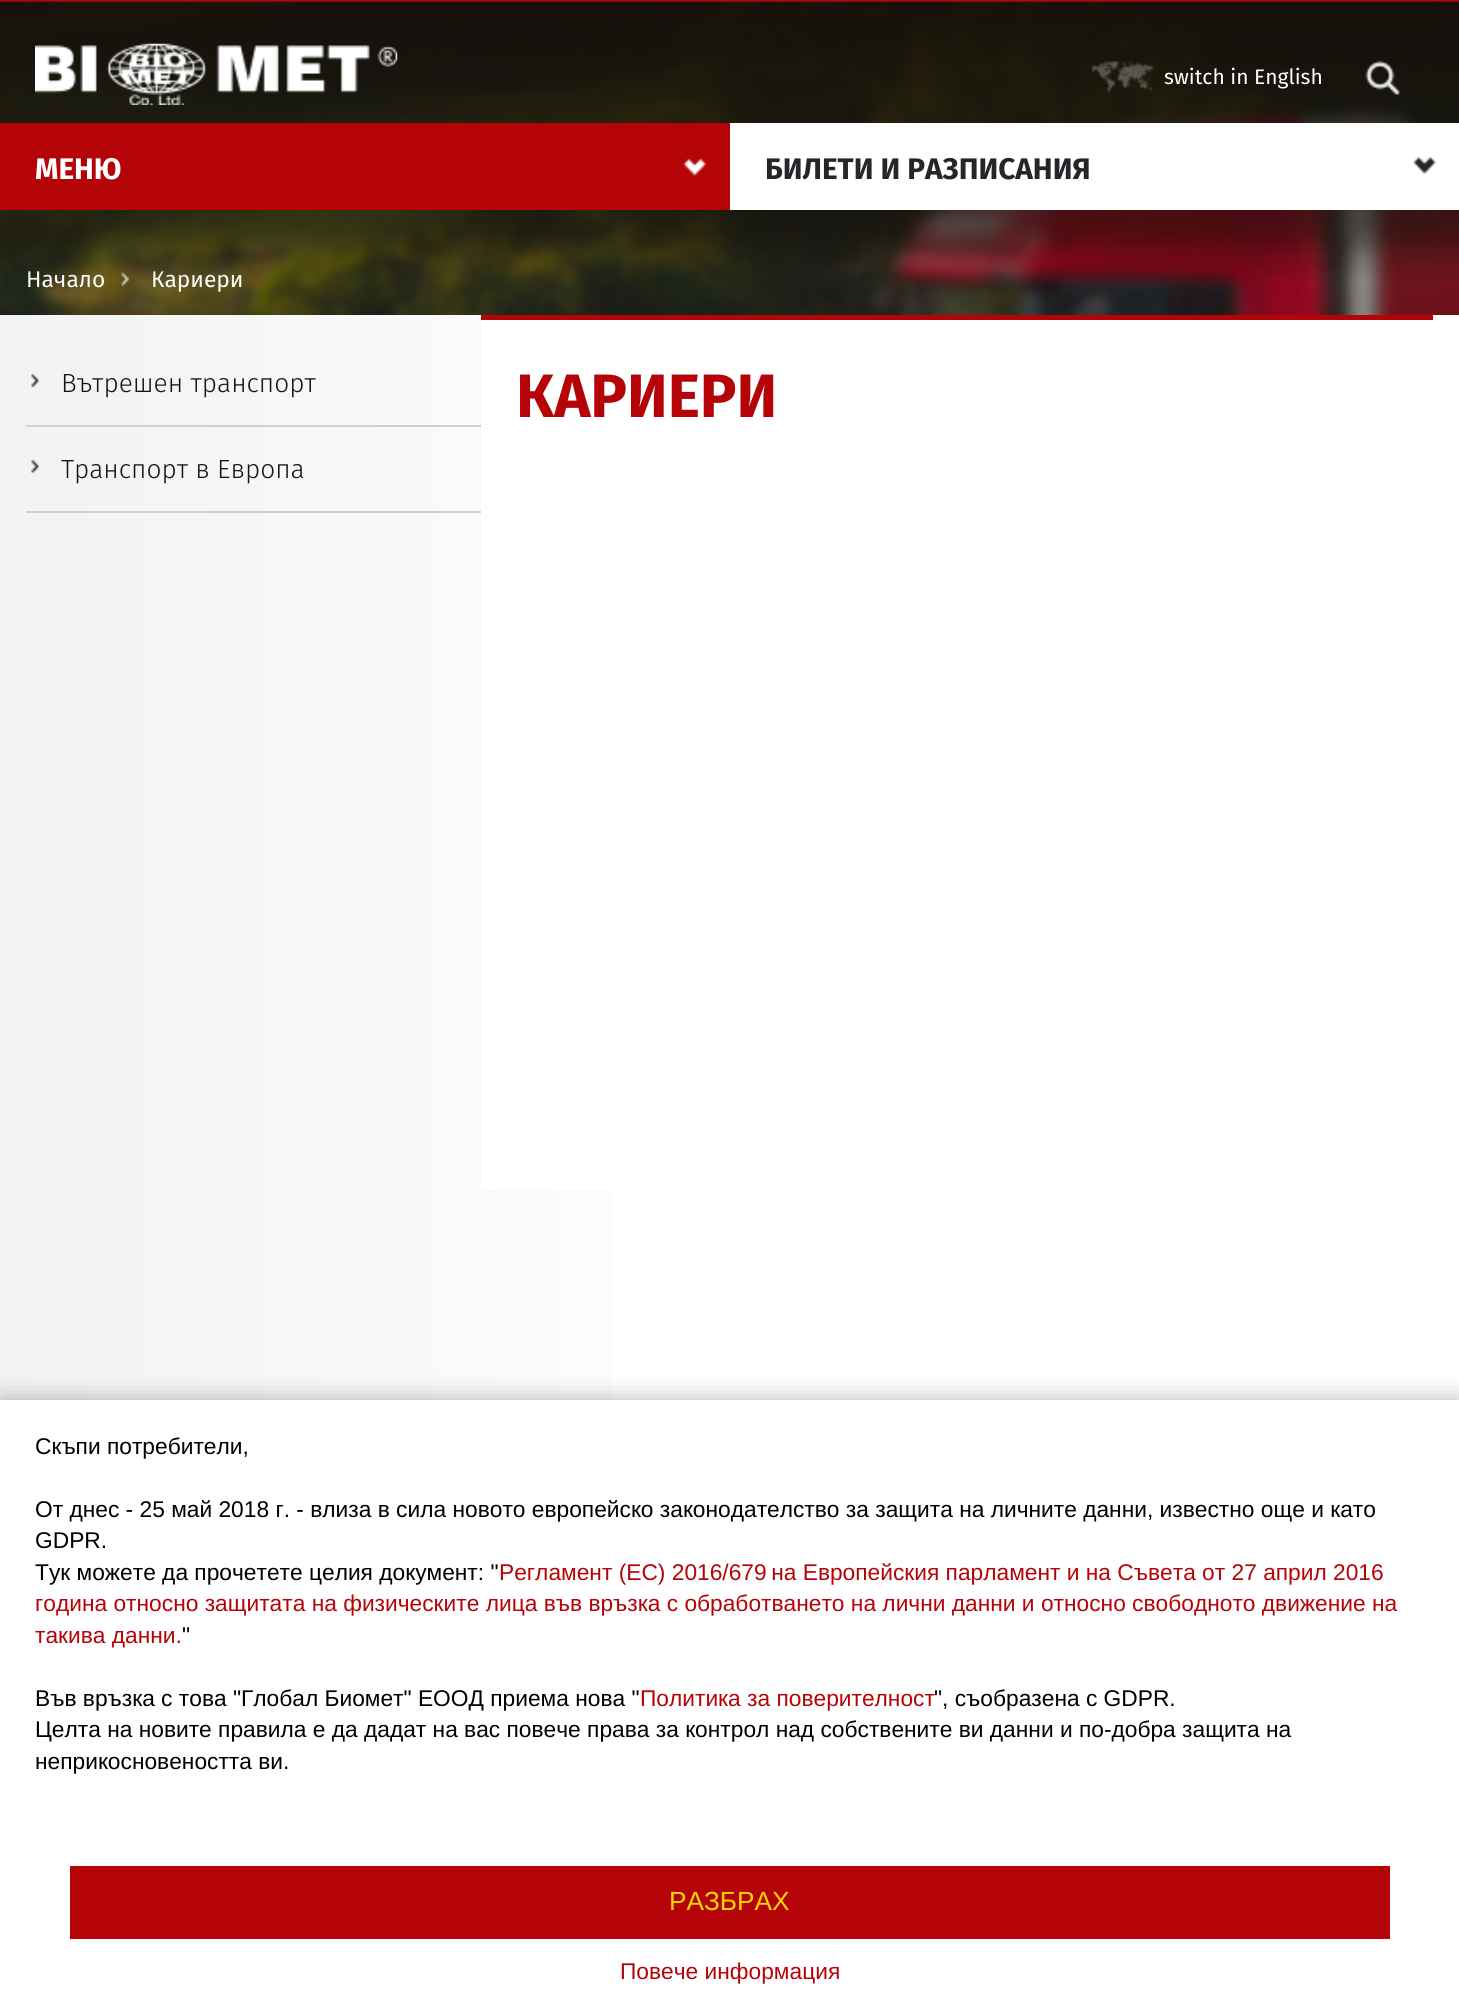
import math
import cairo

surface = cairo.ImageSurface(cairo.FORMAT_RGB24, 1459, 2016)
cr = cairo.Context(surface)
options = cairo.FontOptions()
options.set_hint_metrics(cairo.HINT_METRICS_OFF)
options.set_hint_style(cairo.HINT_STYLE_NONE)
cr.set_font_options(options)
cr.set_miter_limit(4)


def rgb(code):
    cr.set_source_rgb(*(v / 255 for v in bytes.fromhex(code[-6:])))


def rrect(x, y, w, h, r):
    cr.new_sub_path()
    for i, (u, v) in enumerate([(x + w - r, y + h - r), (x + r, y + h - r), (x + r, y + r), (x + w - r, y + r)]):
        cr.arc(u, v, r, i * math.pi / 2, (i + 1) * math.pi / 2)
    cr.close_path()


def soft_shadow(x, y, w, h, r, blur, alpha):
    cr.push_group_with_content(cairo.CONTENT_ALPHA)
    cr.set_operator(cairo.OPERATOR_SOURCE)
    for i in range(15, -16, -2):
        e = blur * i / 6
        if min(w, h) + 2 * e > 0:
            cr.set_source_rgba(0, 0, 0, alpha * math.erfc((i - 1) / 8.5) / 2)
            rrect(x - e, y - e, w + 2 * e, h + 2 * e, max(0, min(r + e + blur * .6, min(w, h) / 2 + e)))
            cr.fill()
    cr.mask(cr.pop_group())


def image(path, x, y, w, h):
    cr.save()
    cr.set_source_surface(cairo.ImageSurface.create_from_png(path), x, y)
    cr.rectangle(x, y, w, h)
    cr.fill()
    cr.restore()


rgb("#ffffff")
cr.paint()
gradient = cairo.LinearGradient(0, 1008, 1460, 1008)
gradient.add_color_stop_rgba(0, 0.949, 0.949, 0.949, 1)
gradient.add_color_stop_rgba(0.52, 1, 1, 1, 1)
cr.set_source(gradient)
cr.rectangle(0, 1, 613, 1399)
cr.fill()
image("img/7.png", 0, 1, 1459, 314)
image("img/8.png", 121, 272, 9, 14)
rgb("#d1d0ce")
cr.rectangle(26, 425, 455, 2)
cr.fill()
image("img/9.png", 31, 374, 8, 14)
cr.rectangle(26, 511, 455, 2)
cr.fill()
image("img/10.png", 31, 459, 8, 14)
rgb("#ffffff")
cr.rectangle(481, 320, 132, 870)
cr.fill()
rgb("#b50408")
cr.rectangle(481, 315, 952, 5)
cr.fill()
rgb("#000000")
soft_shadow(0, 1400, 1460, 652, 0, 12, 0.3)
rgb("#ffffff")
cr.rectangle(0, 1400, 1459, 616)
cr.fill()
rgb("#b50408")
cr.rectangle(70, 1866, 1320, 73)
cr.fill()
cr.select_font_face("Fira Sans")
cr.set_font_size(22.75)
rgb("#ffffff")
cr.move_to(26, 287)
cr.show_text("Начало")
cr.move_to(151, 287)
cr.show_text("Кариери")
image("img/1.png", 0, 0, 1459, 280)
cr.set_font_size(21)
cr.move_to(1164, 84)
cr.show_text("switch in English")
image("img/3.png", 1091, 61, 63, 32)
image("img/4.png", 1365, 60, 35, 35)
image("img/2.png", 35, 43, 363, 62)
cr.rectangle(730, 123, 729, 87)
cr.fill()
cr.select_font_face("Fira Sans", cairo.FONT_SLANT_NORMAL, cairo.FONT_WEIGHT_BOLD)
cr.set_font_size(29.75)
rgb("#252629")
cr.move_to(765, 179)
cr.show_text("БИЛЕТИ И РАЗПИСАНИЯ")
image("img/6.png", 1413, 157, 23, 17)
rgb("#b50408")
cr.rectangle(0, 123, 730, 87)
cr.fill()
rgb("#ffffff")
cr.move_to(35, 179)
cr.show_text("МЕНЮ")
image("img/5.png", 683, 158, 23, 18)
cr.select_font_face("Fira Sans Light")
cr.set_font_size(26.25)
rgb("#17130b")
cr.move_to(61, 392)
cr.show_text("Вътрешен транспорт")
cr.move_to(61, 478)
cr.show_text("Транспорт в Европа")
cr.select_font_face("Fira Sans", cairo.FONT_SLANT_NORMAL, cairo.FONT_WEIGHT_BOLD)
cr.set_font_size(61.25)
rgb("#b50408")
cr.move_to(516, 417)
cr.show_text("КАРИЕРИ")
cr.select_font_face("Liberation Sans")
cr.set_font_size(22.75)
rgb("#000000")
for x, y, s in [
    (35, 1454, "Скъпи потребители,"),
    (35, 1517, "От днес - 25 май 2018 г. - влиза в сила новото европейско законодателство за защита на личните данни, известно още и като"),
    (35, 1548, "GDPR."),
    (35, 1580, "Тук можете да прочетете целия документ: \""),
]:
    cr.move_to(x, y)
    cr.show_text(s)
rgb("#b50408")
for x, y, s in [
    (499, 1580, "Регламент (ЕС) 2016/679 на Европейския парламент и на Съвета от 27 април 2016"),
    (35, 1611, "година относно защитата на физическите лица във връзка с обработването на лични данни и относно свободното движение на"),
    (35, 1643, "такива данни."),
]:
    cr.move_to(x, y)
    cr.show_text(s)
rgb("#000000")
cr.move_to(182, 1643)
cr.show_text("\"")
cr.move_to(35, 1706)
cr.show_text("Във връзка с това \"Глобал Биомет\" ЕООД приема нова \"")
rgb("#b50408")
cr.move_to(640, 1706)
cr.show_text("Политика за поверителност")
rgb("#000000")
for x, y, s in [
    (934, 1706, "\", съобразена с GDPR."),
    (35, 1737, "Целта на новите правила е да дадат на вас повече права за контрол над собствените ви данни и по-добра защита на"),
    (35, 1769, "неприкосновеността ви."),
]:
    cr.move_to(x, y)
    cr.show_text(s)
cr.set_font_size(26.25)
rgb("#ffd600")
cr.move_to(669, 1910)
cr.show_text("РАЗБРАХ")
cr.set_font_size(22.75)
rgb("#b50408")
cr.move_to(620, 1979)
cr.show_text("Повече информация")
surface.write_to_png("page.png")
